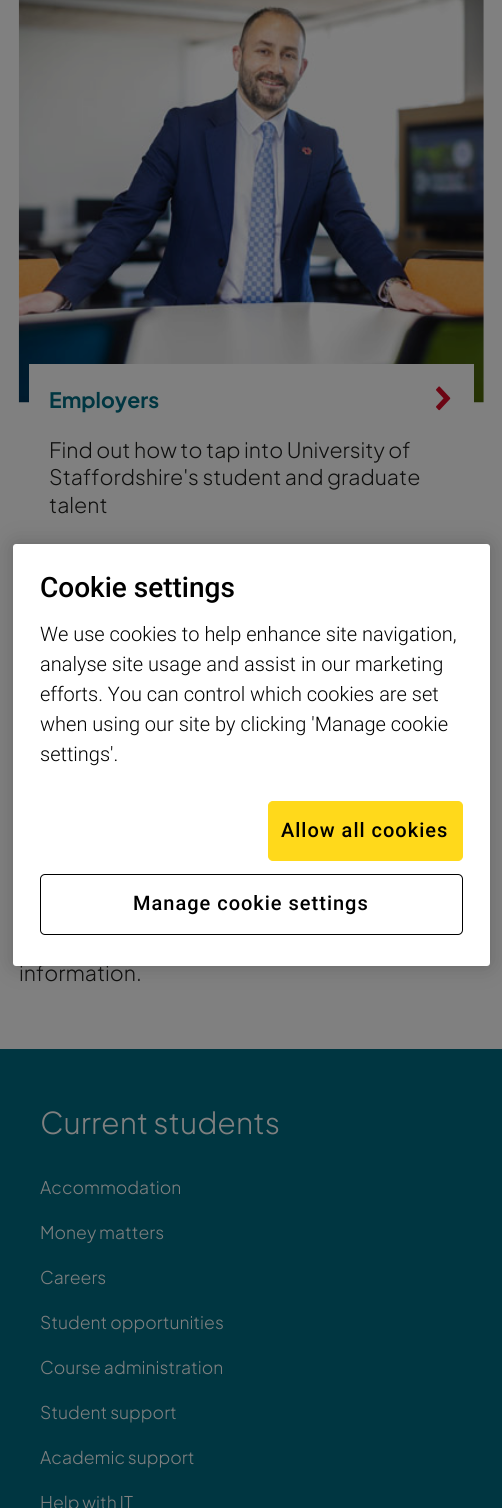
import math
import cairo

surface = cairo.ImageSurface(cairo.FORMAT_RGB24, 502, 1508)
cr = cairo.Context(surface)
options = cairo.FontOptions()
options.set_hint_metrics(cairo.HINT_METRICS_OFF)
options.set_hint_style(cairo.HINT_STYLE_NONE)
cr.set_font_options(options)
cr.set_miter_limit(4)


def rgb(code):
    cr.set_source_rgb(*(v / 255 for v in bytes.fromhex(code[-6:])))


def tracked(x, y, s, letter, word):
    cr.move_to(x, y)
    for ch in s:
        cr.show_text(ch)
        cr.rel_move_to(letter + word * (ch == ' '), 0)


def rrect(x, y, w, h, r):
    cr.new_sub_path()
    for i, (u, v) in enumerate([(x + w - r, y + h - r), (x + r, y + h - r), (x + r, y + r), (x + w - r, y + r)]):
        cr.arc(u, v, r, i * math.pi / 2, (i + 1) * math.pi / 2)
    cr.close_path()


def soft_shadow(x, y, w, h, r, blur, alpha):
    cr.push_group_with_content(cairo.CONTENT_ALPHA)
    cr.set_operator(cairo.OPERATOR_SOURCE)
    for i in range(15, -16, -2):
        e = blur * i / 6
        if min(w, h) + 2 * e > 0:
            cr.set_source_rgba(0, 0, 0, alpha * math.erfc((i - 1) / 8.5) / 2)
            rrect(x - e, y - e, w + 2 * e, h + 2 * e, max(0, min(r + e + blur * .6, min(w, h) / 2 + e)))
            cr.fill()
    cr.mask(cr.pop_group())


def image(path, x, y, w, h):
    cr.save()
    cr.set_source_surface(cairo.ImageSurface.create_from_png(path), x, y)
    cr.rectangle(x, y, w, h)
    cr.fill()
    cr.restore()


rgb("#808080")
cr.paint()
image("img/1.png", 18, 0, 466, 403)
rgb("#808080")
cr.rectangle(29, 364, 445, 39)
cr.fill()
image("img/2.png", 436, 386, 15, 25)
rgb("#003641")
cr.rectangle(0, 1049, 502, 459)
cr.fill()
rgb("#000000")
soft_shadow(13, 544, 477, 422, 3, 11, 0.2)
cr.select_font_face("Plus Jakarta Sans", cairo.FONT_SLANT_NORMAL, cairo.FONT_WEIGHT_BOLD)
cr.set_font_size(21.25)
rgb("#003641")
cr.move_to(49, 408)
cr.show_text("Employers")
cr.select_font_face("Plus Jakarta Sans Light")
rgb("#0f0f0e")
for x, y, s in [
    (49, 458, "Find out how to tap into University of"),
    (49, 485, "Staffordshire's student and graduate"),
    (49, 513, "talent"),
    (19, 981, "information."),
]:
    cr.move_to(x, y)
    cr.show_text(s)
cr.set_font_size(30)
rgb("#808080")
cr.move_to(40, 1134)
cr.show_text("Current students")
cr.set_font_size(17.5)
for x, y, s in [
    (40, 1194, "Accommodation"),
    (40, 1239, "Money matters"),
    (40, 1284, "Careers"),
    (40, 1329, "Student opportunities"),
    (40, 1374, "Course administration"),
    (40, 1419, "Student support"),
    (40, 1464, "Academic support"),
    (40, 1509, "Help with IT"),
]:
    cr.move_to(x, y)
    cr.show_text(s)
rgb("#ffffff")
rrect(13, 544, 477, 422, 3)
cr.fill()
cr.select_font_face("Roboto Medium")
cr.set_font_size(28)
rgb("#000000")
cr.move_to(40, 597)
cr.show_text("Cookie settings")
cr.select_font_face("Roboto Light")
cr.set_font_size(20)
for x, y, s in [
    (40, 641, "We use cookies to help enhance site navigation,"),
    (40, 671, "analyse site usage and assist in our marketing"),
    (40, 701, "efforts. You can control which cookies are set"),
    (40, 731, "when using our site by clicking 'Manage cookie"),
    (40, 761, "settings'."),
]:
    cr.move_to(x, y)
    cr.show_text(s)
rgb("#ffd91b")
rrect(268.5, 801.5, 194, 59, 4.5)
cr.fill_preserve()
cr.set_line_width(1)
cr.stroke()
cr.select_font_face("Roboto Medium")
rgb("#000000")
tracked(281, 837, "Allow all cookies", 1, 0)
rrect(40.5, 874.5, 422, 60, 4.5)
cr.stroke()
tracked(133, 910, "Manage cookie settings", 1, 0)
surface.write_to_png("page.png")
